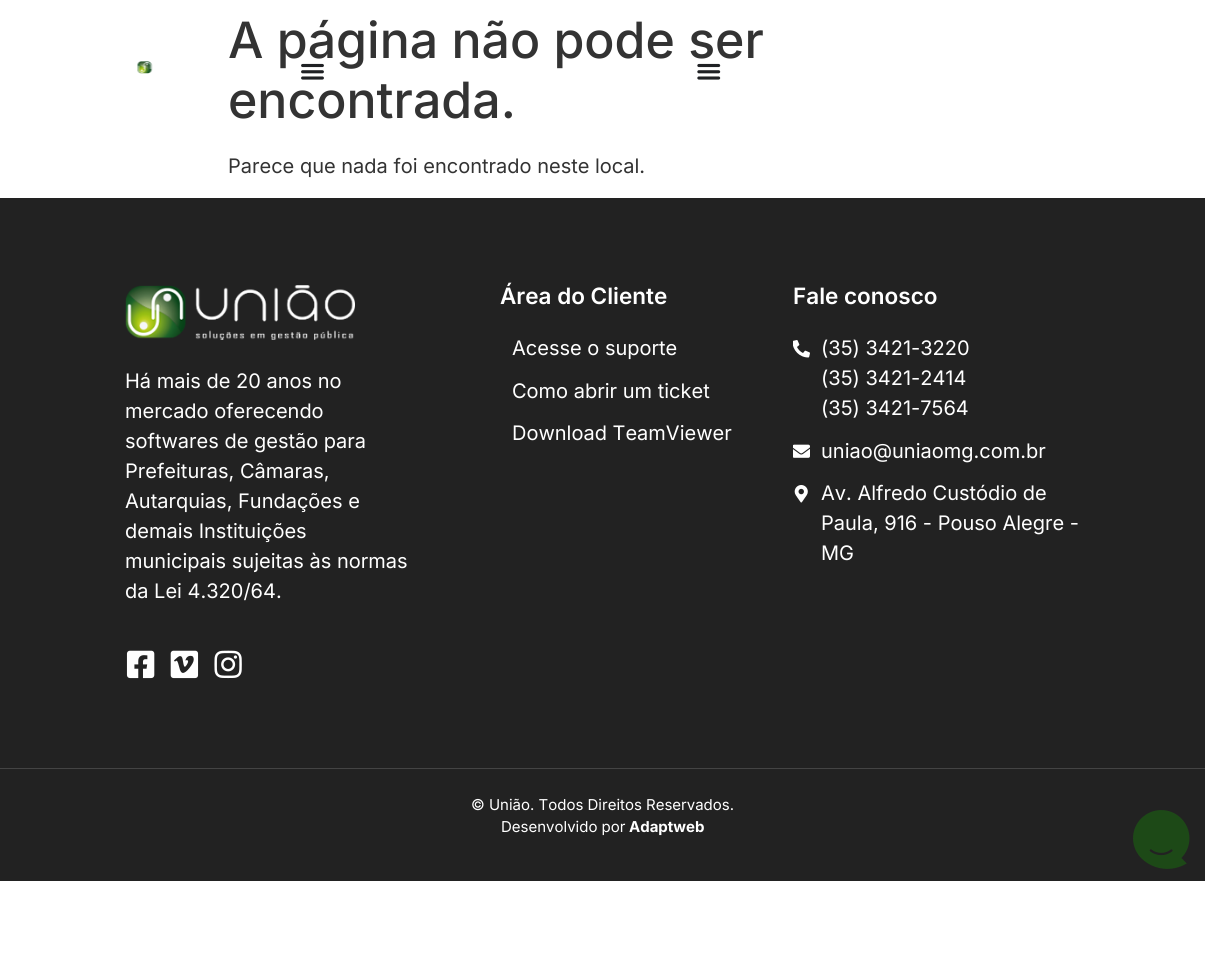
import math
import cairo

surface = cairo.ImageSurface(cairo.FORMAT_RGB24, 1205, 960)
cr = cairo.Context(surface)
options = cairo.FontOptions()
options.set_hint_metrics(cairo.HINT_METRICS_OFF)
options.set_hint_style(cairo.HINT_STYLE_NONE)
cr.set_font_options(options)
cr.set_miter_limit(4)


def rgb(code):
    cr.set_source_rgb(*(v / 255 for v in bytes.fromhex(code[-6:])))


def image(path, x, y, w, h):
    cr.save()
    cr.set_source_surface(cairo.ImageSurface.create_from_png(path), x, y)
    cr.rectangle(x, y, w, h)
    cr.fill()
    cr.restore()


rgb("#ffffff")
cr.paint()
image("img/1.png", 137, 61, 16, 13)
rgb("#222222")
cr.rectangle(0, 198, 1205, 570)
cr.fill()
image("img/4.png", 125, 285, 230, 55)
image("img/5.png", 126, 650, 29, 29)
image("img/6.png", 170, 650, 29, 29)
image("img/7.png", 214, 650, 28, 29)
image("img/8.png", 793, 340, 17, 18)
image("img/9.png", 793, 444, 17, 14)
image("img/10.png", 794, 485, 14, 18)
cr.rectangle(0, 769, 1205, 112)
cr.fill()
rgb("#444444")
cr.rectangle(0, 768, 1205, 1)
cr.fill()
image("img/11.png", 1133, 810, 57, 59)
cr.select_font_face("Inter Medium")
cr.set_font_size(50)
rgb("#333333")
cr.move_to(228, 58)
cr.show_text("A página não pode ser")
cr.move_to(228, 118)
cr.show_text("encontrada.")
cr.select_font_face("Inter")
cr.set_font_size(20)
cr.move_to(228, 173)
cr.show_text("Parece que nada foi encontrado neste local.")
image("img/2.png", 301, 63, 23, 17)
image("img/3.png", 697, 63, 24, 17)
rgb("#ffffff")
for x, y, s in [
    (125, 388, "Há mais de 20 anos no"),
    (125, 418, "mercado oferecendo"),
    (125, 448, "softwares de gestão para"),
    (125, 478, "Prefeituras, Câmaras,"),
    (125, 508, "Autarquias, Fundações e"),
    (125, 538, "demais Instituições"),
    (125, 568, "municipais sujeitas às normas"),
    (125, 598, "da Lei 4.320/64."),
]:
    cr.move_to(x, y)
    cr.show_text(s)
cr.select_font_face("Inter SemiBold")
cr.set_font_size(22.5)
cr.move_to(500, 304)
cr.show_text("Área do Cliente")
cr.select_font_face("Inter")
cr.set_font_size(20)
for x, y, s in [
    (512, 355, "Acesse o suporte"),
    (512, 398, "Como abrir um ticket"),
    (512, 440, "Download TeamViewer"),
]:
    cr.move_to(x, y)
    cr.show_text(s)
cr.select_font_face("Inter SemiBold")
cr.set_font_size(22.5)
cr.move_to(793, 304)
cr.show_text("Fale conosco")
cr.select_font_face("Inter")
cr.set_font_size(20)
for x, y, s in [
    (821, 355, "(35) 3421-3220"),
    (821, 385, "(35) 3421-2414"),
    (821, 415, "(35) 3421-7564"),
    (821, 458, "uniao@uniaomg.com.br"),
    (821, 500, "Av. Alfredo Custódio de"),
    (821, 530, "Paula, 916 - Pouso Alegre -"),
    (821, 560, "MG"),
]:
    cr.move_to(x, y)
    cr.show_text(s)
cr.set_font_size(15)
cr.move_to(471, 810)
cr.show_text("© União. Todos Direitos Reservados.")
cr.move_to(501, 832)
cr.show_text("Desenvolvido por")
cr.select_font_face("Inter", cairo.FONT_SLANT_NORMAL, cairo.FONT_WEIGHT_BOLD)
cr.move_to(629, 832)
cr.show_text("Adaptweb")
surface.write_to_png("page.png")
